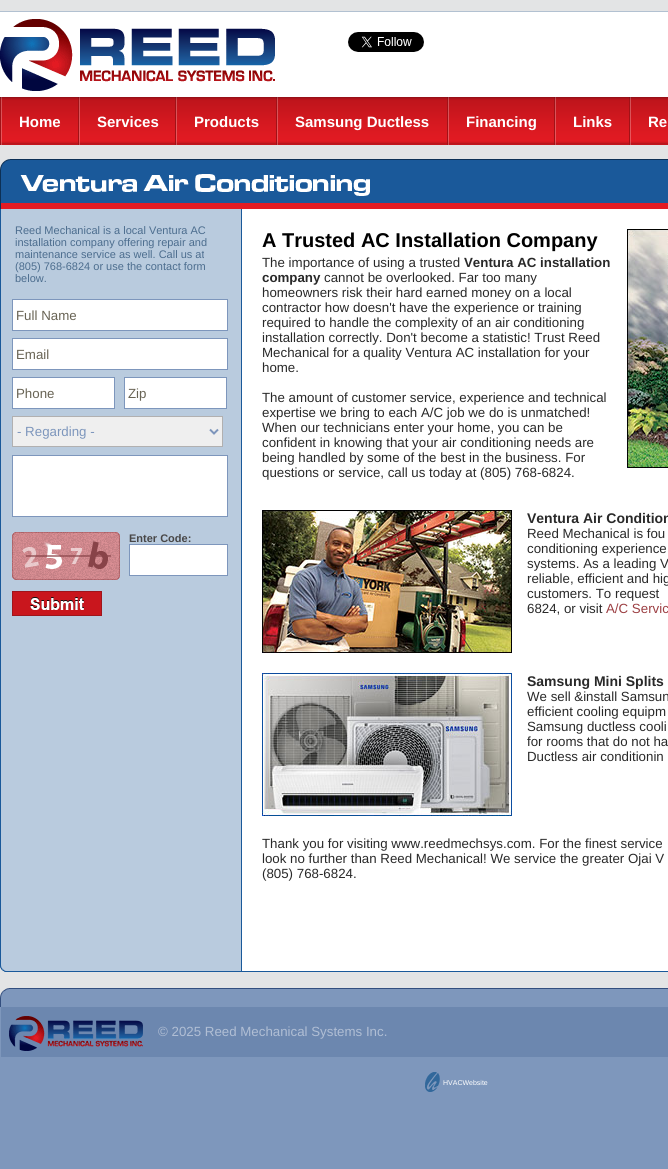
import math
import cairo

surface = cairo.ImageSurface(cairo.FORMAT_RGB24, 668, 1169)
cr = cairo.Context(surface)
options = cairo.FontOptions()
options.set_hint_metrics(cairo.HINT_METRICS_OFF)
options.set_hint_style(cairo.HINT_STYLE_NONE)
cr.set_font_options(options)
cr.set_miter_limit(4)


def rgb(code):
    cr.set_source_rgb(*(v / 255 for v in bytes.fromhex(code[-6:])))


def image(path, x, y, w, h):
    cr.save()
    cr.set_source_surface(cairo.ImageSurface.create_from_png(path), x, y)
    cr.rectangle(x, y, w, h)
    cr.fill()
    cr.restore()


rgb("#e3e4e5")
cr.paint()
rgb("#b2c1d1")
cr.rectangle(0, 11, 668, 1)
cr.fill()
rgb("#ffffff")
cr.rectangle(0, 12, 668, 85)
cr.fill()
image("img/1.png", 0, 19, 275, 72)
image("img/2.png", 348, 32, 76, 20)
image("img/3.png", 2, 97, 666, 48)
image("img/4.png", 0, 97, 2, 48)
image("img/4.png", 78, 97, 2, 48)
image("img/4.png", 175, 97, 2, 48)
image("img/4.png", 276, 97, 2, 48)
image("img/4.png", 447, 97, 2, 48)
image("img/4.png", 554, 97, 2, 48)
image("img/4.png", 629, 97, 2, 48)
image("img/5.png", 0, 159, 668, 50)
image("img/6.png", 0, 209, 668, 737)
cr.rectangle(12.5, 299.5, 215, 31)
cr.fill_preserve()
rgb("#7d96bc")
cr.set_line_width(1)
cr.stroke()
rgb("#ffffff")
cr.rectangle(12.5, 338.5, 215, 31)
cr.fill_preserve()
rgb("#7d96bc")
cr.stroke()
rgb("#ffffff")
cr.rectangle(12.5, 377.5, 102, 31)
cr.fill_preserve()
rgb("#7d96bc")
cr.stroke()
rgb("#ffffff")
cr.rectangle(124.5, 377.5, 102, 31)
cr.fill_preserve()
rgb("#7d96bc")
cr.stroke()
rgb("#efefef")
cr.rectangle(12.5, 416.5, 210, 30)
cr.fill_preserve()
rgb("#b1b0b0")
cr.stroke()
cr.new_path()
cr.move_to(210, 429.5)
cr.line_to(214, 433.5)
cr.line_to(218, 429.5)
rgb("#7d96bc")
cr.set_line_width(2)
cr.stroke()
rgb("#ffffff")
cr.rectangle(12.5, 455.5, 215, 61)
cr.fill_preserve()
rgb("#7d96bc")
cr.set_line_width(1)
cr.stroke()
image("img/7.png", 12, 532, 108, 48)
rgb("#ffffff")
cr.rectangle(129.5, 544.5, 98, 31)
cr.fill_preserve()
rgb("#7d96bc")
cr.stroke()
image("img/8.png", 12, 591, 90, 25)
image("img/9.png", 627, 229, 41, 239)
image("img/10.png", 262, 510, 250, 143)
image("img/11.png", 262, 673, 250, 143)
image("img/12.png", 0, 946, 668, 26)
rgb("#7e97bc")
cr.rectangle(0, 1007, 668, 162)
cr.fill()
image("img/13.png", 0, 988, 668, 19)
rgb("#6c87af")
cr.rectangle(1, 1007, 667, 50)
cr.fill()
image("img/14.png", 9, 1016, 134, 35)
image("img/15.png", 425, 1072, 15, 20)
cr.select_font_face("Liberation Sans", cairo.FONT_SLANT_NORMAL, cairo.FONT_WEIGHT_BOLD)
cr.set_font_size(15)
rgb("#ffffff")
for x, y, s in [
    (19, 127, "Home"),
    (97, 127, "Services"),
    (194, 127, "Products"),
    (295, 127, "Samsung Ductless"),
    (466, 127, "Financing"),
    (573, 127, "Links"),
    (648, 127, "Re"),
]:
    cr.move_to(x, y)
    cr.show_text(s)
cr.select_font_face("Liberation Sans")
cr.set_font_size(11)
rgb("#4c6d8e")
for x, y, s in [
    (15, 234, "Reed Mechanical is a local Ventura AC"),
    (15, 246, "installation company offering repair and"),
    (15, 258, "maintenance service as well. Call us at"),
    (15, 270, "(805) 768-6824 or use the contact form"),
    (15, 282, "below."),
]:
    cr.move_to(x, y)
    cr.show_text(s)
cr.set_font_size(13.3)
rgb("#686354")
for x, y, s in [
    (16, 320, "Full Name"),
    (16, 359, "Email"),
    (16, 398, "Phone"),
    (128, 398, "Zip"),
]:
    cr.move_to(x, y)
    cr.show_text(s)
rgb("#7d96bc")
cr.move_to(17, 436)
cr.show_text("- Regarding -")
cr.select_font_face("Liberation Sans", cairo.FONT_SLANT_NORMAL, cairo.FONT_WEIGHT_BOLD)
cr.set_font_size(11)
rgb("#484747")
cr.move_to(129, 542)
cr.show_text("Enter Code:")
cr.set_font_size(20)
rgb("#000000")
cr.move_to(262, 247)
cr.show_text("A Trusted AC Installation Company")
cr.select_font_face("Liberation Sans")
cr.set_font_size(13.3)
rgb("#292929")
cr.move_to(262, 267)
cr.show_text("The importance of using a trusted")
cr.select_font_face("Liberation Sans", cairo.FONT_SLANT_NORMAL, cairo.FONT_WEIGHT_BOLD)
cr.move_to(464, 267)
cr.show_text("Ventura AC installation")
cr.move_to(262, 282)
cr.show_text("company")
cr.select_font_face("Liberation Sans")
for x, y, s in [
    (324, 282, "cannot be overlooked. Far too many"),
    (262, 297, "homeowners risk their hard earned money on a local"),
    (262, 312, "contractor how doesn't have the experience or training"),
    (262, 327, "required to handle the complexity of an air conditioning"),
    (262, 342, "installation correctly. Don't become a statistic! Trust Reed"),
    (262, 357, "Mechanical for a quality Ventura AC installation for your"),
    (262, 372, "home."),
    (262, 402, "The amount of customer service, experience and technical"),
    (262, 417, "expertise we bring to each A/C job we do is unmatched!"),
    (262, 432, "When our technicians enter your home, you can be"),
    (262, 447, "confident in knowing that your air conditioning needs are"),
    (262, 462, "being handled by some of the best in the business. For"),
    (262, 477, "questions or service, call us today at (805) 768-6824."),
]:
    cr.move_to(x, y)
    cr.show_text(s)
cr.select_font_face("Liberation Sans", cairo.FONT_SLANT_NORMAL, cairo.FONT_WEIGHT_BOLD)
cr.set_font_size(14)
cr.move_to(527, 523)
cr.show_text("Ventura Air Condition")
cr.select_font_face("Liberation Sans")
cr.set_font_size(13.3)
for x, y, s in [
    (527, 538, "Reed Mechanical is fou"),
    (527, 553, "conditioning experience"),
    (527, 568, "systems. As a leading V"),
    (527, 583, "reliable, efficient and hig"),
    (527, 598, "customers. To request"),
    (527, 613, "6824, or visit"),
]:
    cr.move_to(x, y)
    cr.show_text(s)
rgb("#9c3f43")
cr.move_to(606, 613)
cr.show_text("A/C Servic")
cr.select_font_face("Liberation Sans", cairo.FONT_SLANT_NORMAL, cairo.FONT_WEIGHT_BOLD)
cr.set_font_size(14)
rgb("#292929")
cr.move_to(527, 686)
cr.show_text("Samsung Mini Splits")
cr.select_font_face("Liberation Sans")
cr.set_font_size(13.3)
for x, y, s in [
    (527, 701, "We sell &install Samsun"),
    (527, 716, "efficient cooling equipm"),
    (527, 731, "Samsung ductless cooli"),
    (527, 746, "for rooms that do not ha"),
    (527, 761, "Ductless air conditionin"),
    (262, 848, "Thank you for visiting www.reedmechsys.com. For the finest service"),
    (262, 863, "look no further than Reed Mechanical! We service the greater Ojai V"),
    (262, 878, "(805) 768-6824."),
]:
    cr.move_to(x, y)
    cr.show_text(s)
rgb("#b0bed4")
cr.move_to(158, 1036)
cr.show_text("© 2025 Reed Mechanical Systems Inc.")
cr.set_font_size(7)
rgb("#ffffff")
cr.move_to(443, 1085)
cr.show_text("HVACWebsite")
surface.write_to_png("page.png")
